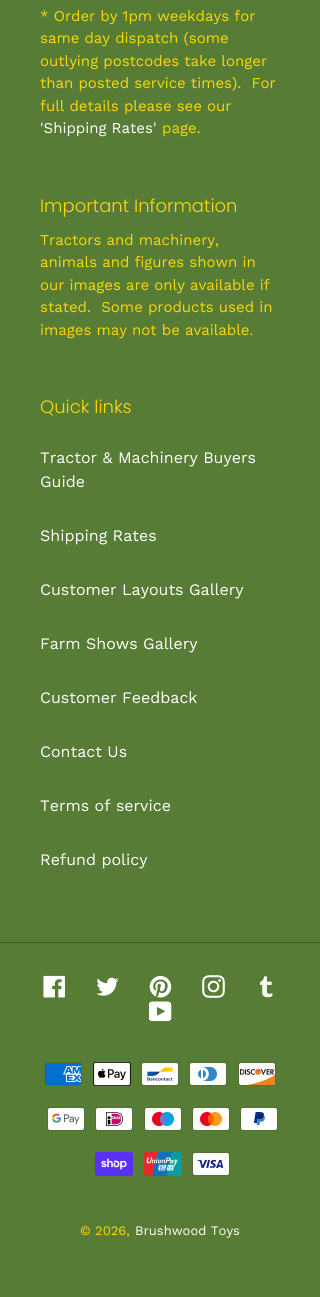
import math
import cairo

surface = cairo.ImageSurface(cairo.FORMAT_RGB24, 320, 1297)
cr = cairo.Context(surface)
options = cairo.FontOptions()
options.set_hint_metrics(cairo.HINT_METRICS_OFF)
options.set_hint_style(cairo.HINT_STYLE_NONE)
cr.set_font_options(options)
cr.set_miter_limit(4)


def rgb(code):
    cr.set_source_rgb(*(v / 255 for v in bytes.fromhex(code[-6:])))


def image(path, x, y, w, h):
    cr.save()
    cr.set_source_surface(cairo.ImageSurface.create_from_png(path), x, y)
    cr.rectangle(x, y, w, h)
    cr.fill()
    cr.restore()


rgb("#577c35")
cr.paint()
rgb("#3e5826")
cr.rectangle(0, 942, 320, 1)
cr.fill()
image("img/1.png", 43, 975, 22, 23)
image("img/2.png", 96, 977, 23, 19)
image("img/3.png", 149, 975, 23, 23)
image("img/4.png", 202, 975, 23, 23)
image("img/5.png", 260, 976, 13, 22)
image("img/6.png", 149, 1001, 23, 21)
image("img/7.png", 44, 1062, 38, 24)
image("img/8.png", 93, 1062, 38, 24)
image("img/9.png", 141, 1062, 38, 24)
image("img/10.png", 189, 1062, 38, 24)
image("img/11.png", 238, 1062, 38, 24)
image("img/12.png", 47, 1107, 38, 24)
image("img/13.png", 95, 1107, 38, 24)
image("img/14.png", 144, 1107, 38, 24)
image("img/15.png", 192, 1107, 38, 24)
image("img/16.png", 240, 1107, 38, 24)
image("img/17.png", 95, 1152, 38, 24)
image("img/18.png", 144, 1152, 38, 24)
image("img/19.png", 192, 1152, 38, 24)
cr.select_font_face("Work Sans")
cr.set_font_size(15)
rgb("#fcd70a")
for x, y, s in [
    (40, 21, "* Order by 1pm weekdays for"),
    (40, 43, "same day dispatch (some"),
    (40, 66, "outlying postcodes take longer"),
    (40, 88, "than posted service times).  For"),
    (40, 111, "full details please see our"),
]:
    cr.move_to(x, y)
    cr.show_text(s)
rgb("#ffffff")
cr.move_to(40, 133)
cr.show_text("'Shipping Rates'")
rgb("#fcd70a")
cr.move_to(162, 133)
cr.show_text("page.")
cr.select_font_face("Poppins Light")
cr.set_font_size(18)
cr.move_to(40, 212)
cr.show_text("Important Information")
cr.select_font_face("Work Sans")
cr.set_font_size(15)
for x, y, s in [
    (40, 245, "Tractors and machinery,"),
    (40, 267, "animals and figures shown in"),
    (40, 290, "our images are only available if"),
    (40, 312, "stated.  Some products used in"),
    (40, 335, "images may not be available."),
]:
    cr.move_to(x, y)
    cr.show_text(s)
cr.select_font_face("Poppins Light")
cr.set_font_size(18)
cr.move_to(40, 413)
cr.show_text("Quick links")
cr.select_font_face("Work Sans")
cr.set_font_size(16)
rgb("#ffffff")
for x, y, s in [
    (40, 463, "Tractor & Machinery Buyers"),
    (40, 487, "Guide"),
    (40, 541, "Shipping Rates"),
    (40, 595, "Customer Layouts Gallery"),
    (40, 649, "Farm Shows Gallery"),
    (40, 703, "Customer Feedback"),
    (40, 757, "Contact Us"),
    (40, 811, "Terms of service"),
    (40, 865, "Refund policy"),
]:
    cr.move_to(x, y)
    cr.show_text(s)
cr.set_font_size(13)
rgb("#fcd70a")
cr.move_to(80, 1235)
cr.show_text("© 2026,")
rgb("#ffffff")
cr.move_to(135, 1235)
cr.show_text("Brushwood Toys")
surface.write_to_png("page.png")
